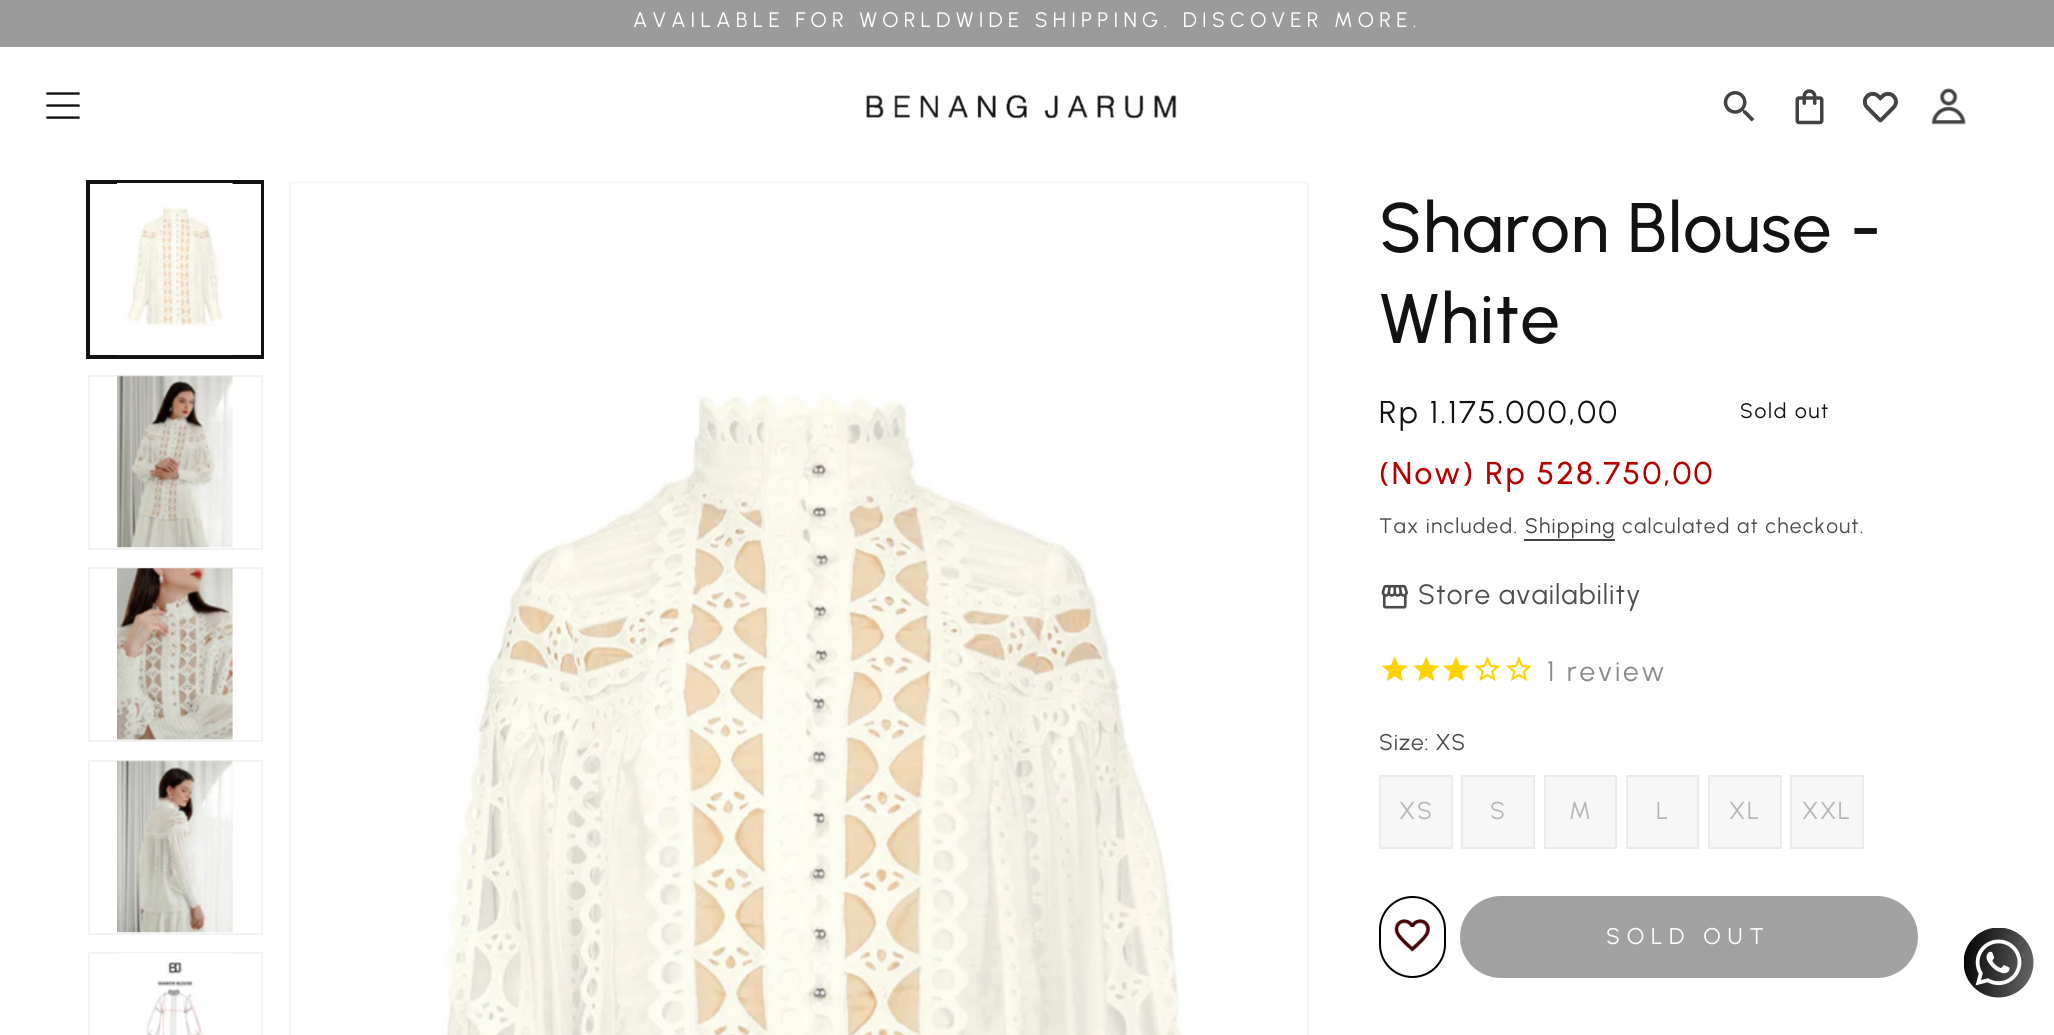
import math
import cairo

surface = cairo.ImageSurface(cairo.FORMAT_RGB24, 2054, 1035)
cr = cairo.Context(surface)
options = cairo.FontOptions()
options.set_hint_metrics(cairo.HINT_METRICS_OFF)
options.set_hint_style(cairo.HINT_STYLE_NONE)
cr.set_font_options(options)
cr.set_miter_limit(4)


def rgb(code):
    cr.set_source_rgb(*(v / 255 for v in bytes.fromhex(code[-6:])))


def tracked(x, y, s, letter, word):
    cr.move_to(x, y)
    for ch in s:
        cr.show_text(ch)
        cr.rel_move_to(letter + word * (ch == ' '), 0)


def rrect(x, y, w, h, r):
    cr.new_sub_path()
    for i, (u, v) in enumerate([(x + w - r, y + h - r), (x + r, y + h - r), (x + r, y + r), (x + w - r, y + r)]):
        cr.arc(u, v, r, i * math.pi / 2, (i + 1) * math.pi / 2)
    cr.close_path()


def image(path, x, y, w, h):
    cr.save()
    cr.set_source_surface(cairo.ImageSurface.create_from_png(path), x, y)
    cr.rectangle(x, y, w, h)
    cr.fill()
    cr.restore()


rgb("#ffffff")
cr.paint()
rgb("#9b9b9b")
cr.rectangle(0, 0, 2054, 47)
cr.fill()
image("img/1.png", 46, 92, 34, 27)
image("img/2.png", 866, 94, 311, 25)
image("img/3.png", 1723, 91, 32, 31)
image("img/4.png", 1795, 89, 29, 36)
image("img/5.png", 1862, 91, 36, 32)
image("img/6.png", 1931, 88, 35, 37)
cr.rectangle(87, 181, 176, 177)
rgb("#121212")
cr.stroke()
cr.rectangle(89, 183, 173, 173)
cr.stroke()
image("img/7.png", 117, 183, 116, 173)
cr.rectangle(89, 376, 173, 173)
rgb("#f3f3f3")
cr.stroke()
image("img/8.png", 117, 375, 116, 173)
cr.rectangle(89, 568, 173, 173)
cr.stroke()
image("img/9.png", 117, 568, 116, 173)
cr.rectangle(89, 761, 173, 173)
cr.stroke()
image("img/10.png", 117, 760, 116, 173)
cr.rectangle(89, 953, 173, 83)
cr.stroke()
image("img/11.png", 117, 953, 116, 82)
cr.rectangle(290, 183, 1018, 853)
cr.stroke()
image("img/12.png", 291, 183, 1017, 852)
rgb("#424242")
cr.rectangle(1524, 539, 91, 2)
cr.fill()
image("img/13.png", 1381, 584, 27, 25)
image("img/14.png", 1381, 656, 27, 25)
image("img/15.png", 1413, 656, 27, 25)
image("img/16.png", 1443, 656, 26, 25)
image("img/17.png", 1474, 656, 27, 25)
image("img/18.png", 1506, 656, 26, 25)
rgb("#f7f7f7")
cr.rectangle(1380, 776, 72, 72)
cr.fill_preserve()
rgb("#ebebeb")
cr.stroke()
rgb("#f7f7f7")
cr.rectangle(1462, 776, 72, 72)
cr.fill_preserve()
rgb("#ebebeb")
cr.stroke()
rgb("#f7f7f7")
cr.rectangle(1545, 776, 71, 72)
cr.fill_preserve()
rgb("#ebebeb")
cr.stroke()
rgb("#f7f7f7")
cr.rectangle(1627, 776, 71, 72)
cr.fill_preserve()
rgb("#ebebeb")
cr.stroke()
rgb("#f7f7f7")
cr.rectangle(1709, 776, 72, 72)
cr.fill_preserve()
rgb("#ebebeb")
cr.stroke()
rgb("#f7f7f7")
cr.rectangle(1791, 776, 72, 72)
cr.fill_preserve()
rgb("#ebebeb")
cr.stroke()
rrect(1380, 897, 65, 80, 32.5)
rgb("#000000")
cr.stroke()
image("img/19.png", 1394, 919, 36, 33)
rgb("#a1a1a1")
rrect(1460, 896, 458, 82, 41)
cr.fill()
image("img/20.png", 1964, 928, 70, 70)
cr.select_font_face("Urbanist")
cr.set_font_size(21)
rgb("#ffffff")
tracked(633, 27, "AVAILABLE FOR WORLDWIDE SHIPPING. DISCOVER MORE.", 5.25, 0)
cr.select_font_face("Urbanist Medium")
cr.set_font_size(70)
rgb("#121212")
tracked(1379, 252, "Sharon Blouse -", 1, 0)
tracked(1379, 343, "White", 1, 0)
cr.select_font_face("Urbanist")
cr.set_font_size(31.5)
tracked(1379, 423, "Rp 1.175.000,00", 2.25, 0)
cr.select_font_face("Urbanist Medium")
rgb("#b50000")
tracked(1379, 484, "(Now) Rp 528.750,00", 2.25, 0)
cr.select_font_face("Urbanist")
cr.set_font_size(21)
rgb("#121212")
tracked(1740, 418, "Sold out", 1.75, 0)
rgb("#4d4d4d")
tracked(1379, 533, "Tax included.", 1.25, 0)
rgb("#424242")
tracked(1525, 533, "Shipping", 1.25, 0)
rgb("#4d4d4d")
tracked(1622, 533, "calculated at checkout.", 1.25, 0)
cr.set_font_size(28)
tracked(1418, 604, "Store availability", 1, 0)
rgb("#8a8a8a")
tracked(1547, 681, "1 review", 2.75, 0)
cr.set_font_size(22.75)
rgb("#4d4d4d")
tracked(1379, 750, "Size: XS", 0.75, 0)
cr.set_font_size(24.5)
rgb("#b5b5b5")
for x, y, s in [
    (1399, 819, "XS"),
    (1490, 819, "S"),
    (1569, 819, "M"),
    (1656, 819, "L"),
    (1729, 819, "XL"),
    (1802, 819, "XXL"),
]:
    tracked(x, y, s, 1.75, 0)
cr.set_font_size(22.75)
rgb("#ffffff")
tracked(1606, 944, "SOLD OUT", 6.75, 0)
surface.write_to_png("page.png")
